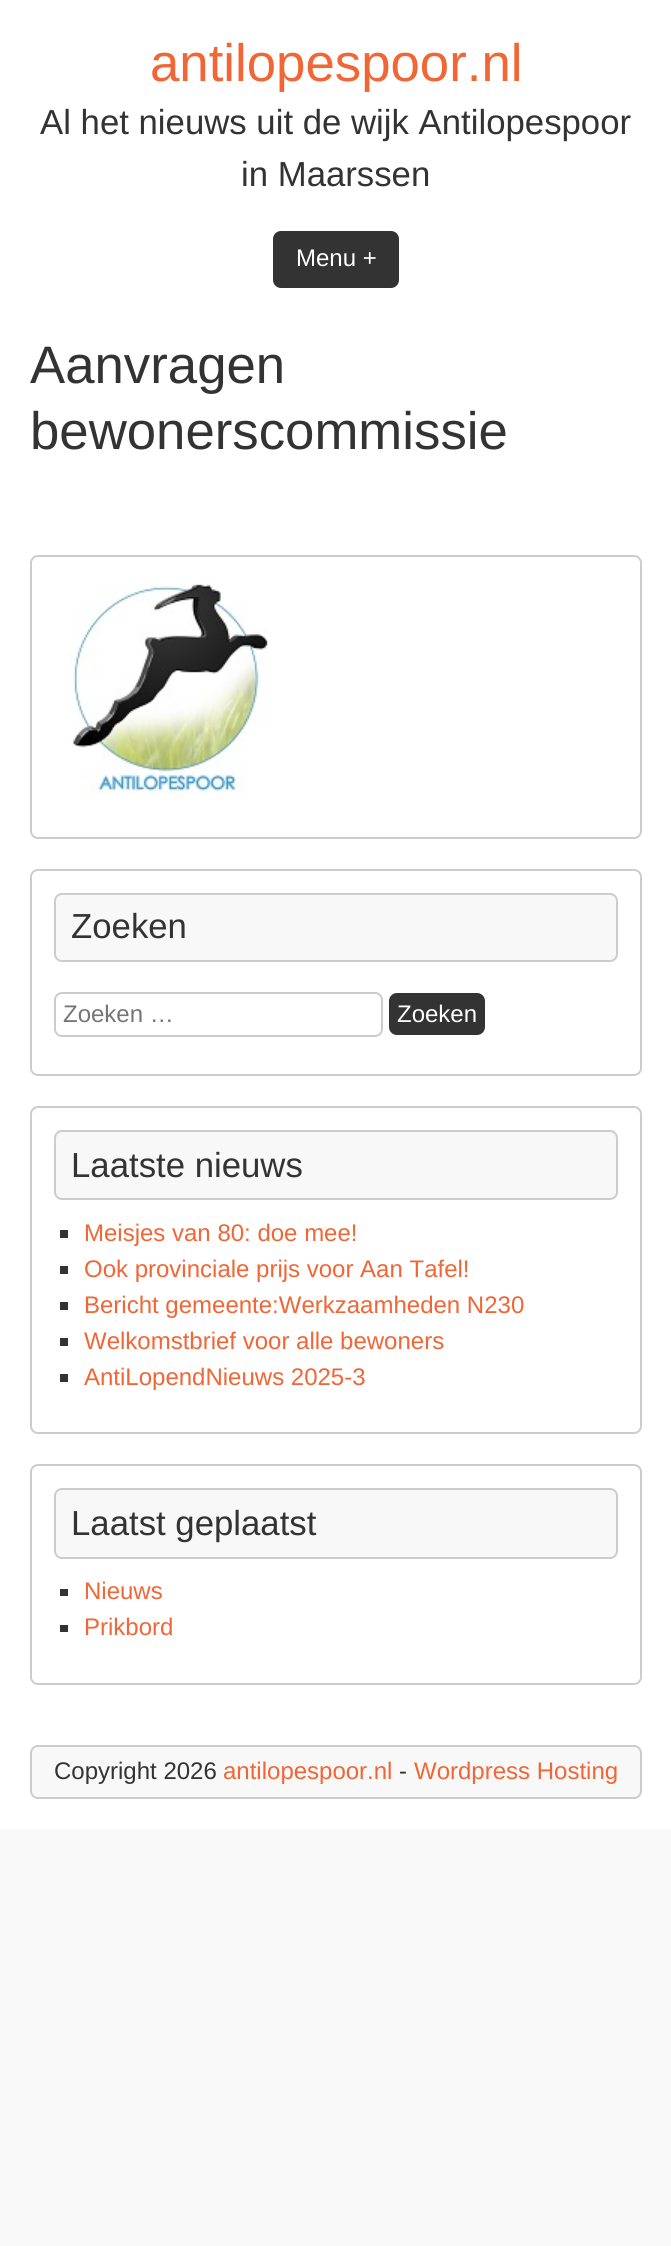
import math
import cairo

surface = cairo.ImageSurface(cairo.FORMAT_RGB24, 671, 2246)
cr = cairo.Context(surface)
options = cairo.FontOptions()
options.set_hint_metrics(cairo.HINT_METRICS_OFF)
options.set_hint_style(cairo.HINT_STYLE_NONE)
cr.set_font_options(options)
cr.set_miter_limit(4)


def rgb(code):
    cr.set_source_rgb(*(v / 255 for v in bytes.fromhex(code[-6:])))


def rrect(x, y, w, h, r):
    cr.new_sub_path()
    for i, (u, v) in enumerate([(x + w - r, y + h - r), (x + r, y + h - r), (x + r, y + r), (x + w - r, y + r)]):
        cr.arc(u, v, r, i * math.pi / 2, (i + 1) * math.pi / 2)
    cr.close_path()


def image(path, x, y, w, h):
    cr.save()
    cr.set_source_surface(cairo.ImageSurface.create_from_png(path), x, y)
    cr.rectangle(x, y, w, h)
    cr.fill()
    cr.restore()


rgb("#f9f9f9")
cr.paint()
rgb("#ffffff")
cr.rectangle(0, 0, 671, 1829)
cr.fill()
rgb("#333333")
rrect(273, 231, 126, 57, 8)
cr.fill()
rrect(31, 556, 610, 282, 7)
rgb("#cccccc")
cr.stroke()
image("img/1.png", 68, 583, 202, 212)
rrect(31, 870, 610, 205, 7)
cr.stroke()
rgb("#f8f8f8")
rrect(55, 894, 562, 67, 7)
cr.fill_preserve()
rgb("#cccccc")
cr.stroke()
rrect(55, 993, 327, 43, 7)
cr.stroke()
rgb("#333333")
rrect(389, 993, 96, 42, 8)
cr.fill()
rrect(31, 1107, 610, 326, 7)
rgb("#cccccc")
cr.stroke()
rgb("#f8f8f8")
rrect(55, 1131, 562, 68, 7)
cr.fill_preserve()
rgb("#cccccc")
cr.stroke()
for x, y, w, h, color in [
    (60, 1230, 8, 8, "#333333"),
    (60, 1266, 8, 8, "#333333"),
    (60, 1302, 8, 8, "#333333"),
    (60, 1338, 8, 8, "#333333"),
    (60, 1374, 8, 8, "#333333"),
]:
    rgb(color)
    cr.rectangle(x, y, w, h)
    cr.fill()
rrect(31, 1465, 610, 219, 7)
rgb("#cccccc")
cr.stroke()
rgb("#f8f8f8")
rrect(55, 1489, 562, 69, 7)
cr.fill_preserve()
rgb("#cccccc")
cr.stroke()
rgb("#333333")
cr.rectangle(60, 1589, 8, 7)
cr.fill()
cr.rectangle(60, 1625, 8, 7)
cr.fill()
rgb("#f8f8f8")
rrect(31, 1746, 610, 52, 7)
cr.fill_preserve()
rgb("#cccccc")
cr.stroke()
cr.select_font_face("Liberation Sans")
cr.set_font_size(52.75)
rgb("#f26535")
cr.move_to(150, 81)
cr.show_text("antilopespoor.nl")
cr.set_font_size(34.75)
rgb("#333333")
cr.move_to(40, 134)
cr.show_text("Al het nieuws uit de wijk Antilopespoor")
cr.move_to(241, 186)
cr.show_text("in Maarssen")
cr.set_font_size(24)
rgb("#ffffff")
cr.move_to(296, 266)
cr.show_text("Menu +")
cr.set_font_size(52.75)
rgb("#333333")
cr.move_to(30, 383)
cr.show_text("Aanvragen")
cr.move_to(30, 449)
cr.show_text("bewonerscommissie")
cr.set_font_size(34.75)
cr.move_to(71, 938)
cr.show_text("Zoeken")
cr.set_font_size(24)
rgb("#757575")
cr.move_to(63, 1022)
cr.show_text("Zoeken …")
rgb("#ffffff")
cr.move_to(397, 1022)
cr.show_text("Zoeken")
cr.set_font_size(34.75)
rgb("#333333")
cr.move_to(71, 1177)
cr.show_text("Laatste nieuws")
cr.set_font_size(24)
rgb("#f26535")
for x, y, s in [
    (84, 1241, "Meisjes van 80: doe mee!"),
    (84, 1277, "Ook provinciale prijs voor Aan Tafel!"),
    (84, 1313, "Bericht gemeente:Werkzaamheden N230"),
    (84, 1349, "Welkomstbrief voor alle bewoners"),
    (84, 1385, "AntiLopendNieuws 2025-3"),
]:
    cr.move_to(x, y)
    cr.show_text(s)
cr.set_font_size(34.75)
rgb("#333333")
cr.move_to(71, 1535)
cr.show_text("Laatst geplaatst")
cr.set_font_size(24)
rgb("#f26535")
cr.move_to(84, 1599)
cr.show_text("Nieuws")
cr.move_to(84, 1635)
cr.show_text("Prikbord")
rgb("#333333")
cr.move_to(54, 1779)
cr.show_text("Copyright 2026")
rgb("#f26535")
cr.move_to(223, 1779)
cr.show_text("antilopespoor.nl")
rgb("#333333")
cr.move_to(399, 1779)
cr.show_text("-")
rgb("#f26535")
cr.move_to(414, 1779)
cr.show_text("Wordpress Hosting")
surface.write_to_png("page.png")
